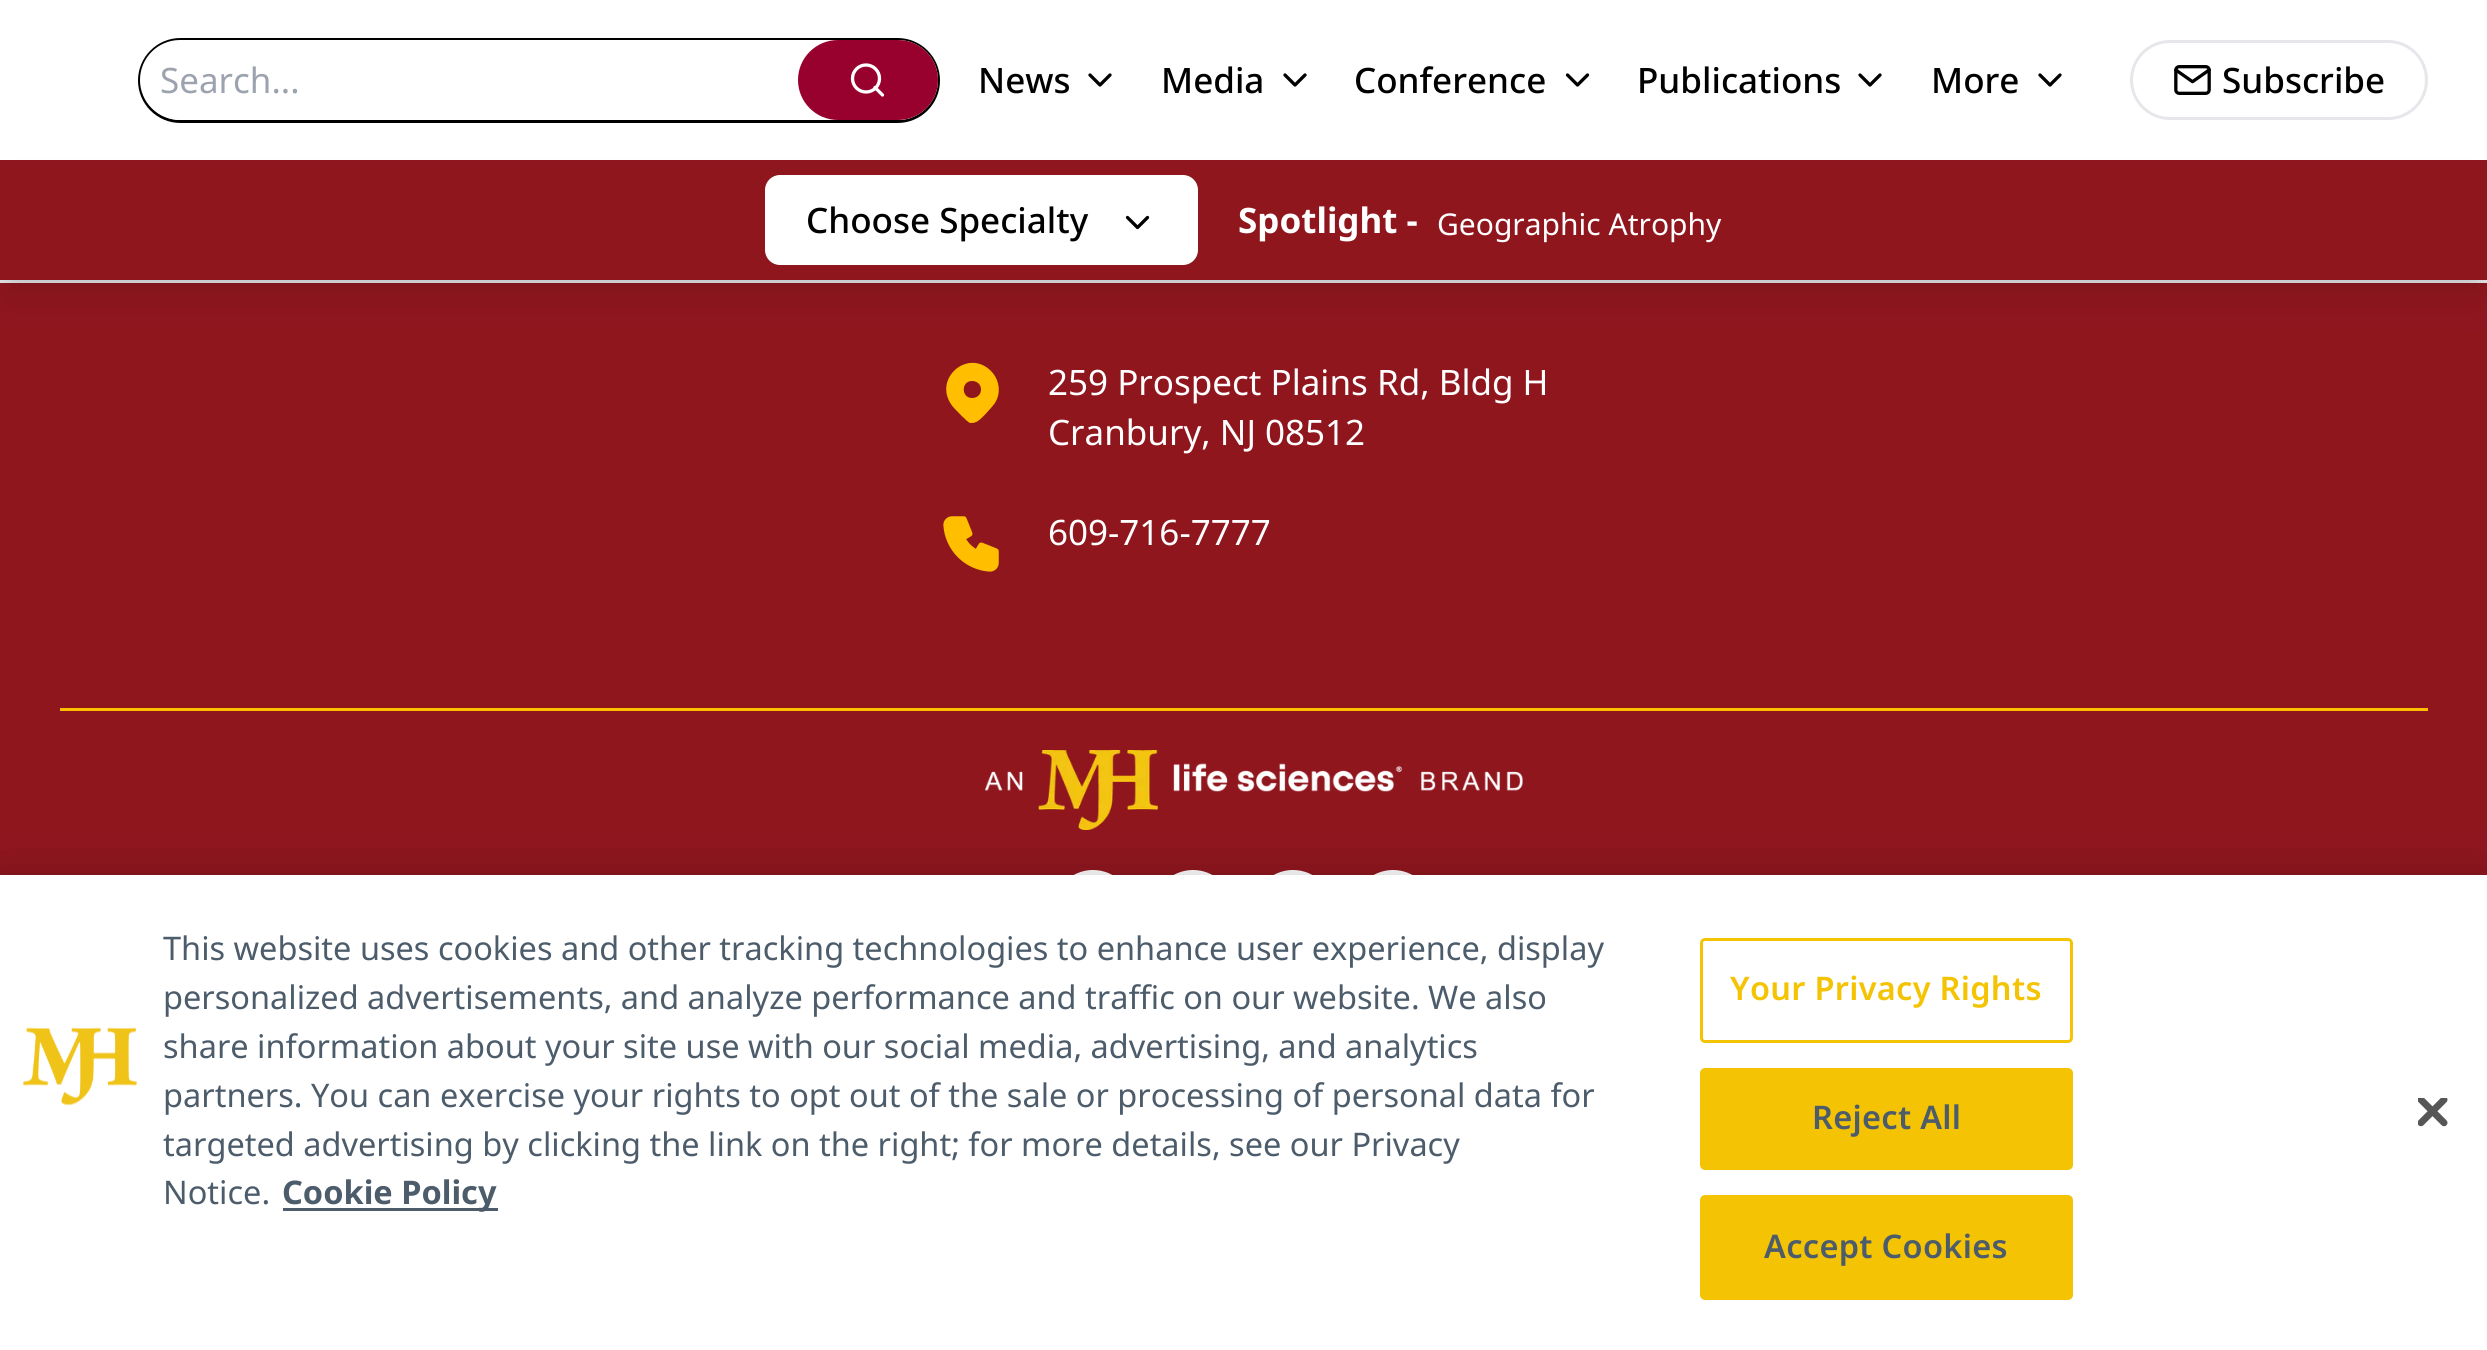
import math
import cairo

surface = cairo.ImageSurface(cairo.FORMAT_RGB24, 2487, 1350)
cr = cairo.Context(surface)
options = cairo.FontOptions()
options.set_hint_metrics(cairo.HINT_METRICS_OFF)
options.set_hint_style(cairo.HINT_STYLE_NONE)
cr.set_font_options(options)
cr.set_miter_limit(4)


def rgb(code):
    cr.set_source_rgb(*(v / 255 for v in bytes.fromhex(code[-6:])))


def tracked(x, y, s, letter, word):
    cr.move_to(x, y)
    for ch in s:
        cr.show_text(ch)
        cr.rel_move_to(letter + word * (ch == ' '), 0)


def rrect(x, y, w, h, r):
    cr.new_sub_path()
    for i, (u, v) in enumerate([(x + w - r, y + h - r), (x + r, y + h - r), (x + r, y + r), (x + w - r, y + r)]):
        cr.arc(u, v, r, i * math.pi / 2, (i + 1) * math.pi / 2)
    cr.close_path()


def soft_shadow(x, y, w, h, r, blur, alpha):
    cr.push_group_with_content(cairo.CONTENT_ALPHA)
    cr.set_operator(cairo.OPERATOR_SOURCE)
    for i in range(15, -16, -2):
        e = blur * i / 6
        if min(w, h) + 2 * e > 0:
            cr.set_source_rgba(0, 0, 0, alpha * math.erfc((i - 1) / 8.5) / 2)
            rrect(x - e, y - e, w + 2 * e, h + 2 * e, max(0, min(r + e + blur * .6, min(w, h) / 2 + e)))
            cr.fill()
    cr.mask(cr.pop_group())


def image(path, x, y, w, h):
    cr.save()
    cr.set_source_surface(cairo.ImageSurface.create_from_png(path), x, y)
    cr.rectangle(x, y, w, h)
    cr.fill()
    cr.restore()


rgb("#90161e")
cr.paint()
rgb("#ffffff")
cr.rectangle(0, 0, 2487, 160)
cr.fill()
rgb("#e5e7eb")
cr.rectangle(0, 280, 2487, 3)
cr.fill()
rrect(139.5, 39.5, 799, 82, 41)
rgb("#000000")
cr.set_line_width(3)
cr.stroke()
rgb("#ffffff")
rrect(140, 40, 798, 80, 40)
cr.fill()
rgb("#98012e")
rrect(798, 40, 140, 80, 40)
cr.fill()
cr.arc(866, 78.5, 13.5, 0, 2 * math.pi)
rgb("#ffffff")
cr.set_line_width(3.3)
cr.stroke()
cr.new_path()
cr.move_to(882.5, 95)
cr.line_to(875, 87.5)
cr.set_line_cap(cairo.LINE_CAP_ROUND)
cr.set_line_join(cairo.LINE_JOIN_ROUND)
cr.stroke()
cr.new_path()
cr.move_to(1090, 75)
cr.line_to(1100, 85)
cr.line_to(1110, 75)
rgb("#000000")
cr.stroke()
cr.new_path()
cr.move_to(1285, 75)
cr.line_to(1295, 85)
cr.line_to(1305, 75)
cr.stroke()
cr.new_path()
cr.move_to(1567.5, 75)
cr.line_to(1577.5, 85)
cr.line_to(1587.5, 75)
cr.stroke()
cr.new_path()
cr.move_to(1860, 75)
cr.line_to(1870, 85)
cr.line_to(1880, 75)
cr.stroke()
cr.new_path()
cr.move_to(2040, 75)
cr.line_to(2050, 85)
cr.line_to(2060, 75)
cr.stroke()
rrect(2131.5, 41.5, 295, 77, 38.5)
rgb("#e5e7eb")
cr.set_line_width(3)
cr.set_line_cap(cairo.LINE_CAP_BUTT)
cr.set_line_join(cairo.LINE_JOIN_MITER)
cr.stroke()
image("img/1.png", 2174, 65, 37, 30)
rgb("#000000")
soft_shadow(10, 180, 2468, 100, 0, 7.5, 0.1)
soft_shadow(8, 193, 2472, 105, 0, 19, 0.1)
rgb("#90161e")
cr.rectangle(0, 169, 2487, 111)
cr.fill()
rgb("#ffffff")
rrect(765, 175, 433, 90, 15)
cr.fill()
cr.new_path()
cr.move_to(1127.5, 217.5)
cr.line_to(1137.5, 227.5)
cr.line_to(1147.5, 217.5)
rgb("#000000")
cr.set_line_width(3.3)
cr.set_line_cap(cairo.LINE_CAP_ROUND)
cr.set_line_join(cairo.LINE_JOIN_ROUND)
cr.stroke()
rgb("#ffbf00")
cr.rectangle(60, 708, 2368, 3)
cr.fill()
cr.new_path()
cr.move_to(991, 371)
cr.curve_to(998, 378, 1001, 389, 997, 399)
cr.line_to(995, 403)
cr.curve_to(992, 407, 980, 421, 976, 422)
cr.curve_to(974, 423, 972, 423, 970, 423)
cr.curve_to(966, 421, 957, 411, 954, 408)
cr.curve_to(930, 381, 967, 347, 991, 371)
cr.close_path()
cr.move_to(972, 381)
cr.curve_to(961, 381, 961, 398, 972, 398)
cr.curve_to(984, 398, 984, 381, 972, 381)
cr.close_path()
cr.fill()
image("img/2.png", 943, 516, 56, 56)
image("img/3.png", 985, 750, 538, 80)
image("img/4.png", 1073, 870, 40, 5)
image("img/4.png", 1173, 870, 40, 5)
image("img/4.png", 1273, 870, 40, 5)
image("img/4.png", 1373, 870, 40, 5)
rgb("#000000")
soft_shadow(0, 875, 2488, 475, 0, 22.5, 0.2)
rgb("#ffffff")
cr.rectangle(0, 875, 2487, 475)
cr.fill()
image("img/5.png", 23, 1027, 114, 79)
rgb("#4c5c6b")
cr.rectangle(283, 1208, 215, 3)
cr.fill()
rrect(1701.5, 939.5, 370, 102, 3.5)
rgb("#f4c404")
cr.set_line_width(3)
cr.set_line_cap(cairo.LINE_CAP_BUTT)
cr.set_line_join(cairo.LINE_JOIN_MITER)
cr.stroke()
rrect(1701.5, 1069.5, 370, 99, 3.5)
cr.fill_preserve()
cr.stroke()
rrect(1701.5, 1196.5, 370, 102, 3.5)
cr.fill_preserve()
cr.stroke()
image("img/6.png", 2418, 1098, 30, 29)
cr.select_font_face("Noto Sans")
cr.set_font_size(35)
rgb("#9ca3af")
cr.move_to(160, 93)
cr.show_text("Search...")
cr.select_font_face("Noto Sans Medium")
rgb("#000000")
for x, y, s in [
    (978, 93, "News"),
    (1161, 93, "Media"),
    (1354, 93, "Conference"),
    (1637, 93, "Publications"),
    (1931, 93, "More"),
    (2222, 93, "Subscribe"),
    (806, 233, "Choose Specialty"),
]:
    cr.move_to(x, y)
    cr.show_text(s)
cr.select_font_face("Noto Sans", cairo.FONT_SLANT_NORMAL, cairo.FONT_WEIGHT_BOLD)
rgb("#ffffff")
cr.move_to(1238, 233)
cr.show_text("Spotlight -")
cr.select_font_face("Noto Sans")
cr.set_font_size(30)
cr.move_to(1437, 235)
cr.show_text("Geographic Atrophy")
cr.set_font_size(35)
for x, y, s in [
    (1048, 395, "259 Prospect Plains Rd, Bldg H"),
    (1048, 445, "Cranbury, NJ 08512"),
    (1048, 545, "609-716-7777"),
]:
    cr.move_to(x, y)
    cr.show_text(s)
cr.set_font_size(32.5)
rgb("#4c5c6b")
for x, y, s in [
    (163, 960, "This website uses cookies and other tracking technologies to enhance user experience, display"),
    (163, 1009, "personalized advertisements, and analyze performance and traffic on our website. We also"),
    (163, 1058, "share information about your site use with our social media, advertising, and analytics"),
    (163, 1107, "partners. You can exercise your rights to opt out of the sale or processing of personal data for"),
    (163, 1156, "targeted advertising by clicking the link on the right; for more details, see our Privacy"),
    (163, 1204, "Notice."),
]:
    cr.move_to(x, y)
    cr.show_text(s)
cr.select_font_face("Noto Sans", cairo.FONT_SLANT_NORMAL, cairo.FONT_WEIGHT_BOLD)
cr.move_to(282, 1204)
cr.show_text("Cookie Policy")
cr.select_font_face("Noto Sans SemiBold")
rgb("#f4c404")
tracked(1730, 1000, "Your Privacy Rights", 0.3, 0)
rgb("#4c5c6b")
tracked(1812, 1129, "Reject All", 0.3, 0)
tracked(1764, 1258, "Accept Cookies", 0.3, 0)
surface.write_to_png("page.png")
